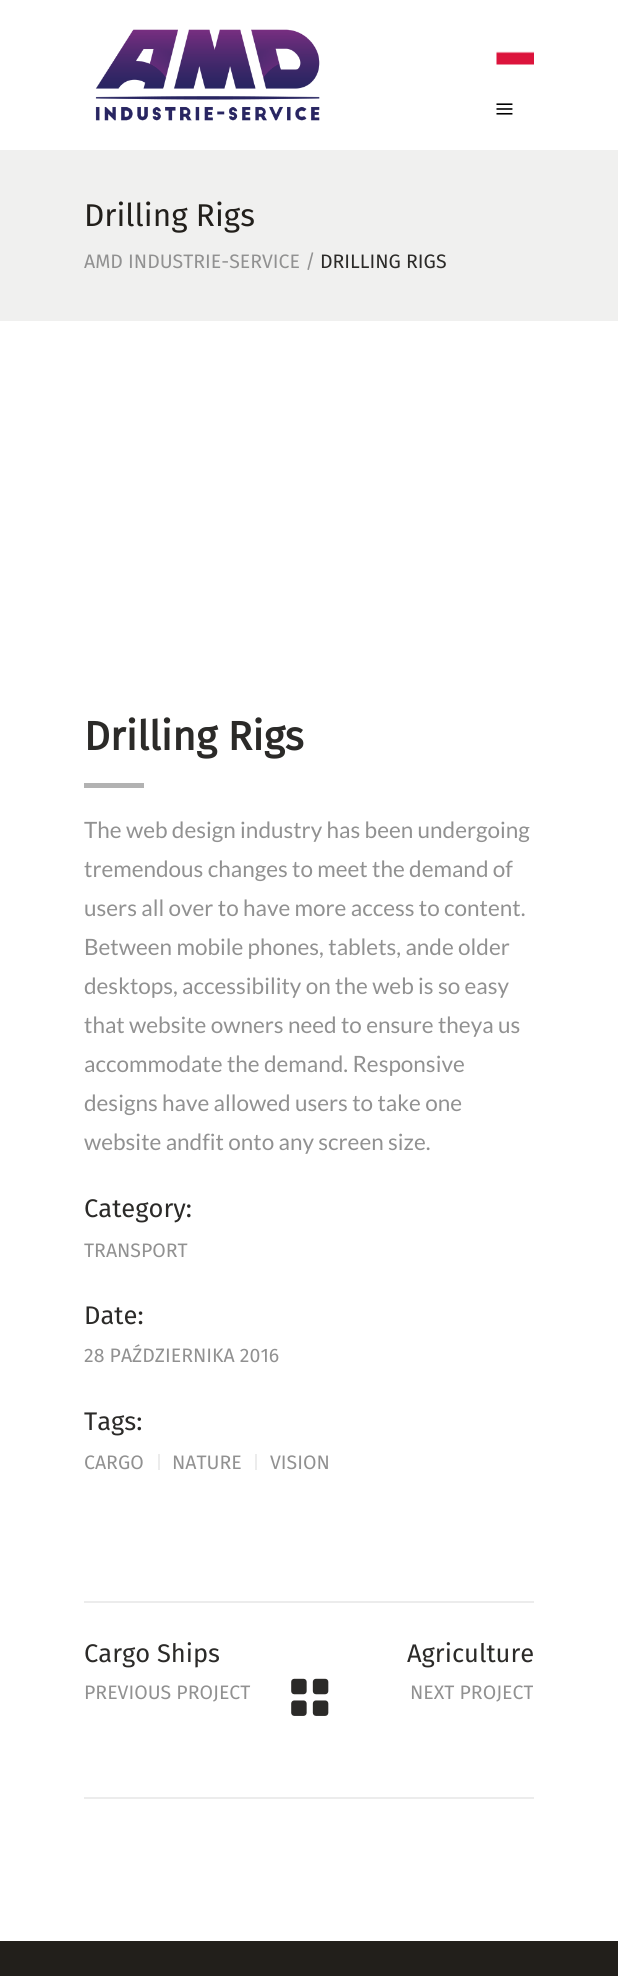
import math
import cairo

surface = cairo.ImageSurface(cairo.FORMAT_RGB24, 618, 1976)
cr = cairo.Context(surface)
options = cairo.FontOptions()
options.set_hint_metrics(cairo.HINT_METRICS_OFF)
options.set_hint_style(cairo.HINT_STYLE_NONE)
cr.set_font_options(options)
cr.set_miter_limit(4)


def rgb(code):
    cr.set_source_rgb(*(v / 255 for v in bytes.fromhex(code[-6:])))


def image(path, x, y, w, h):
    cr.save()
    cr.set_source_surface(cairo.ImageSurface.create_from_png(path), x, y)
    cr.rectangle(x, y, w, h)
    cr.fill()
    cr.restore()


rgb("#ffffff")
cr.paint()
image("img/1.png", 95, 29, 225, 92)
image("img/2.png", 496, 51, 38, 14)
image("img/3.png", 496, 103, 17, 12)
for x, y, w, h, color in [
    (0, 150, 618, 171, "#f0f0ef"),
    (84, 783, 60, 5, "#b2b2b2"),
    (158, 1454, 2, 16, "#ececec"),
    (255, 1454, 2, 16, "#ececec"),
    (84, 1601, 450, 2, "#ececec"),
    (84, 1797, 450, 2, "#ececec"),
]:
    rgb(color)
    cr.rectangle(x, y, w, h)
    cr.fill()
image("img/4.png", 291, 1678, 38, 38)
rgb("#221f1b")
cr.rectangle(0, 1941, 618, 35)
cr.fill()
cr.select_font_face("Fira Sans")
cr.set_font_size(31.5)
cr.move_to(84, 226)
cr.show_text("Drilling Rigs")
cr.set_font_size(19.5)
rgb("#919191")
cr.move_to(84, 268)
cr.show_text("AMD INDUSTRIE-SERVICE /")
rgb("#2b2a28")
cr.move_to(320, 268)
cr.show_text("DRILLING RIGS")
cr.select_font_face("Fira Sans", cairo.FONT_SLANT_NORMAL, cairo.FONT_WEIGHT_BOLD)
cr.set_font_size(40.5)
cr.move_to(84, 750)
cr.show_text("Drilling Rigs")
cr.select_font_face("Lato")
cr.set_font_size(22.5)
rgb("#919191")
for x, y, s in [
    (84, 838, "The web design industry has been undergoing"),
    (84, 877, "tremendous changes to meet the demand of"),
    (84, 916, "users all over to have more access to content."),
    (84, 955, "Between mobile phones, tablets, ande older"),
    (84, 994, "desktops, accessibility on the web is so easy"),
    (84, 1033, "that website owners need to ensure theya us"),
    (84, 1072, "accommodate the demand. Responsive"),
    (84, 1111, "designs have allowed users to take one"),
    (84, 1150, "website andfit onto any screen size."),
]:
    cr.move_to(x, y)
    cr.show_text(s)
cr.select_font_face("Fira Sans")
cr.set_font_size(25.5)
rgb("#2b2a28")
cr.move_to(84, 1217)
cr.show_text("Category:")
cr.set_font_size(19.5)
rgb("#919191")
cr.move_to(84, 1257)
cr.show_text("TRANSPORT")
cr.set_font_size(25.5)
rgb("#2b2a28")
cr.move_to(84, 1324)
cr.show_text("Date:")
cr.set_font_size(19.5)
rgb("#919191")
cr.move_to(84, 1362)
cr.show_text("28 PAŹDZIERNIKA 2016")
cr.set_font_size(25.5)
rgb("#2b2a28")
cr.move_to(84, 1430)
cr.show_text("Tags:")
cr.set_font_size(19.5)
rgb("#919191")
for x, y, s in [
    (84, 1469, "CARGO"),
    (172, 1469, "NATURE"),
    (270, 1469, "VISION"),
]:
    cr.move_to(x, y)
    cr.show_text(s)
cr.set_font_size(25.5)
rgb("#2b2a28")
cr.move_to(84, 1662)
cr.show_text("Cargo Ships")
cr.set_font_size(19.5)
rgb("#919191")
cr.move_to(84, 1699)
cr.show_text("PREVIOUS PROJECT")
cr.set_font_size(25.5)
rgb("#2b2a28")
cr.move_to(407, 1662)
cr.show_text("Agriculture")
cr.set_font_size(19.5)
rgb("#919191")
cr.move_to(410, 1699)
cr.show_text("NEXT PROJECT")
surface.write_to_png("page.png")
